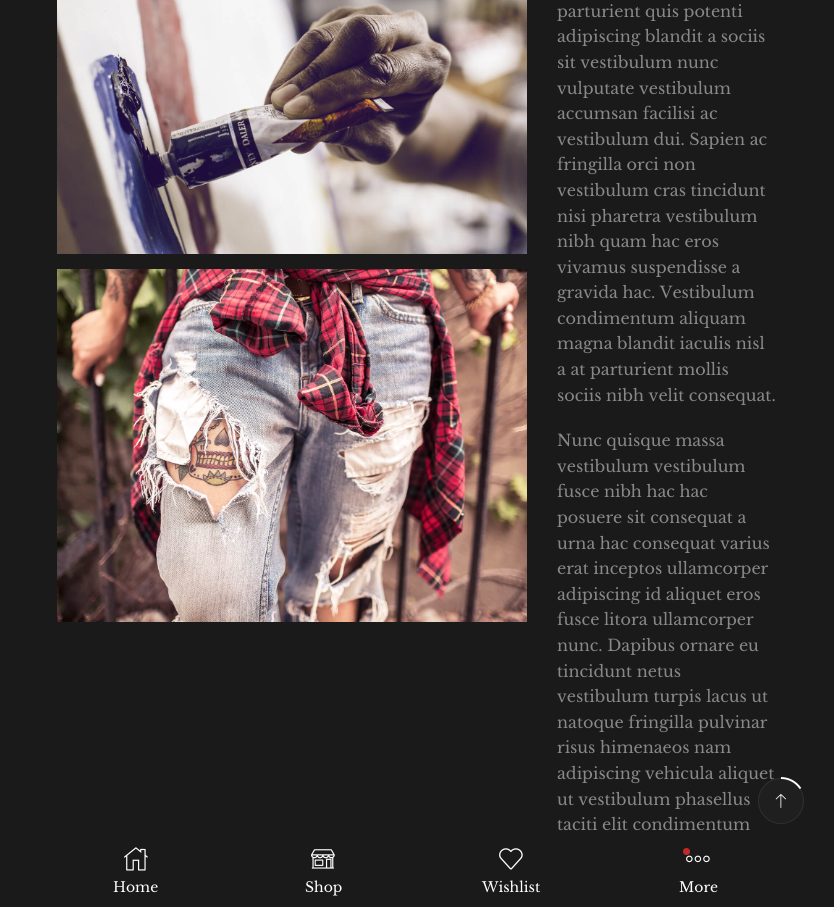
import math
import cairo

surface = cairo.ImageSurface(cairo.FORMAT_RGB24, 834, 907)
cr = cairo.Context(surface)
options = cairo.FontOptions()
options.set_hint_metrics(cairo.HINT_METRICS_OFF)
options.set_hint_style(cairo.HINT_STYLE_NONE)
cr.set_font_options(options)
cr.set_miter_limit(4)


def rgb(code):
    cr.set_source_rgb(*(v / 255 for v in bytes.fromhex(code[-6:])))


def image(path, x, y, w, h):
    cr.save()
    cr.set_source_surface(cairo.ImageSurface.create_from_png(path), x, y)
    cr.rectangle(x, y, w, h)
    cr.fill()
    cr.restore()


rgb("#1a1a1a")
cr.paint()
image("img/1.png", 57, 0, 470, 254)
image("img/2.png", 57, 269, 470, 353)
image("img/4.png", 124, 847, 24, 24)
image("img/5.png", 311, 849, 24, 20)
image("img/6.png", 499, 848, 24, 22)
rgb("#c62828")
cr.arc(686.5, 851.5, 3.5, 0, 2 * math.pi)
cr.fill()
image("img/7.png", 686, 855, 24, 8)
cr.select_font_face("Libre Baskerville")
cr.set_font_size(16)
rgb("#888888")
for x, y, s in [
    (557, 17, "parturient quis potenti"),
    (557, 42, "adipiscing blandit a sociis"),
    (557, 68, "sit vestibulum nunc"),
    (557, 94, "vulputate vestibulum"),
    (557, 119, "accumsan facilisi ac"),
    (557, 145, "vestibulum dui. Sapien ac"),
    (557, 170, "fringilla orci non"),
    (557, 196, "vestibulum cras tincidunt"),
    (557, 222, "nisi pharetra vestibulum"),
    (557, 247, "nibh quam hac eros"),
    (557, 273, "vivamus suspendisse a"),
    (557, 298, "gravida hac. Vestibulum"),
    (557, 324, "condimentum aliquam"),
    (557, 349, "magna blandit iaculis nisl"),
    (557, 375, "a at parturient mollis"),
    (557, 401, "sociis nibh velit consequat."),
    (557, 446, "Nunc quisque massa"),
    (557, 472, "vestibulum vestibulum"),
    (557, 497, "fusce nibh hac hac"),
    (557, 523, "posuere sit consequat a"),
    (557, 549, "urna hac consequat varius"),
    (557, 574, "erat inceptos ullamcorper"),
    (557, 600, "adipiscing id aliquet eros"),
    (557, 625, "fusce litora ullamcorper"),
    (557, 651, "nunc. Dapibus ornare eu"),
    (557, 677, "tincidunt netus"),
    (557, 702, "vestibulum turpis lacus ut"),
    (557, 728, "natoque fringilla pulvinar"),
    (557, 753, "risus himenaeos nam"),
    (557, 779, "adipiscing vehicula aliquet"),
    (557, 805, "ut vestibulum phasellus"),
    (557, 830, "taciti elit condimentum"),
]:
    cr.move_to(x, y)
    cr.show_text(s)
rgb("#1f1f1f")
cr.new_path()
cr.arc(781, 801, 22.5, 0, 2 * math.pi)
cr.fill_preserve()
rgb("#2f2f2f")
cr.set_line_width(1)
cr.stroke()
cr.new_path()
cr.move_to(781, 778)
cr.curve_to(789, 778, 796, 782, 800.5, 788.5)
rgb("#ffffff")
cr.set_line_width(1.9)
cr.stroke()
image("img/3.png", 775, 794, 11, 14)
cr.set_font_size(14)
for x, y, s in [
    (113, 892, "Home"),
    (305, 892, "Shop"),
    (482, 892, "Wishlist"),
    (679, 892, "More"),
]:
    cr.move_to(x, y)
    cr.show_text(s)
surface.write_to_png("page.png")
